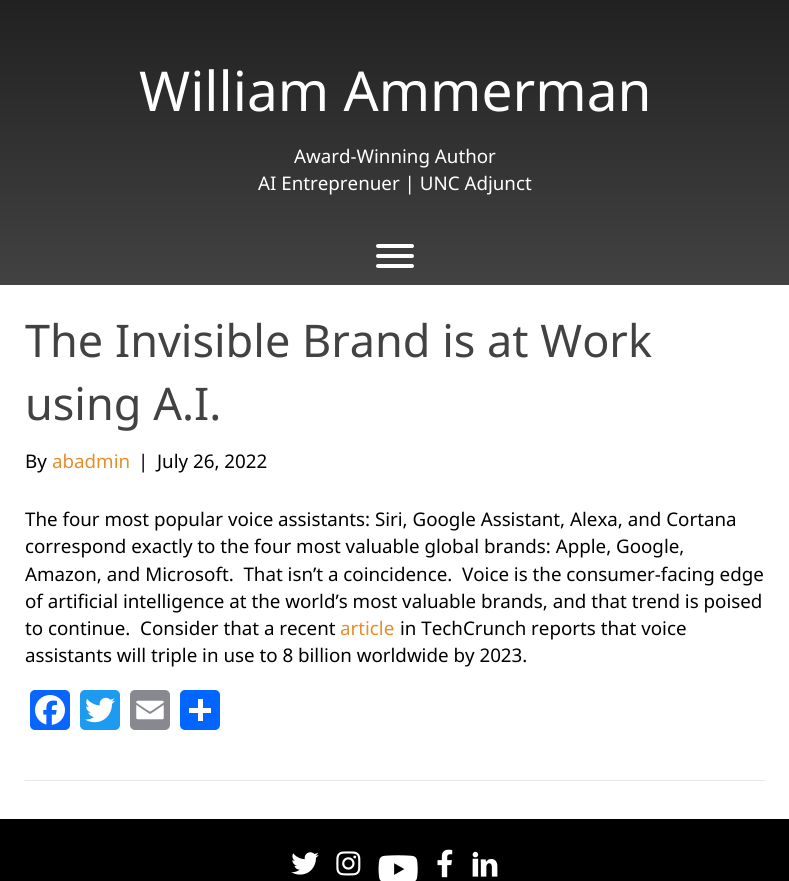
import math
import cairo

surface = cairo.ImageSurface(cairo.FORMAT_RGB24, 789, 881)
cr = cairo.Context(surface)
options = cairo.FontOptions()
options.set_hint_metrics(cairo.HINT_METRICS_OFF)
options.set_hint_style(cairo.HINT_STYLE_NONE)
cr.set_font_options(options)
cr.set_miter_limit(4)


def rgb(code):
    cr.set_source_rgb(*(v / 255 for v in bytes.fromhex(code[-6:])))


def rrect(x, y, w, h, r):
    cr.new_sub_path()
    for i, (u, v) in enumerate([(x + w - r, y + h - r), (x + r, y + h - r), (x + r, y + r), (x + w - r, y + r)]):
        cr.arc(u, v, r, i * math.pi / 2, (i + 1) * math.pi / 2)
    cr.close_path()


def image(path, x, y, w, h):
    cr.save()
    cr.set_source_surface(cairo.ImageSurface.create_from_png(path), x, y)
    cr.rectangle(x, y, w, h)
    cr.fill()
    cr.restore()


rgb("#ffffff")
cr.paint()
gradient = cairo.LinearGradient(395, 0, 395, 285)
gradient.add_color_stop_rgba(0, 0.129, 0.129, 0.129, 1)
gradient.add_color_stop_rgba(1, 0.259, 0.259, 0.259, 1)
cr.set_source(gradient)
cr.rectangle(0, 0, 789, 285)
cr.fill()
rgb("#ffffff")
rrect(376, 254, 38, 4, 2)
cr.fill()
rrect(376, 244, 38, 4, 2)
cr.fill()
rrect(376, 264, 38, 4, 2)
cr.fill()
rgb("#0866ff")
rrect(30, 690, 40, 40, 5)
cr.fill()
image("img/1.png", 35, 695, 30, 30)
rgb("#1d9bf0")
rrect(80, 690, 40, 40, 5)
cr.fill()
image("img/2.png", 85, 697, 30, 26)
rgb("#888990")
rrect(130, 690, 40, 40, 5)
cr.fill()
image("img/3.png", 136, 700, 28, 20)
rgb("#0166ff")
rrect(180, 690, 40, 40, 5)
cr.fill()
for x, y, w, h, color in [
    (198, 699, 5, 22, "#ffffff"),
    (189, 708, 22, 5, "#ffffff"),
    (25, 780, 740, 1, "#e6e6e6"),
    (0, 819, 789, 62, "#000000"),
]:
    rgb(color)
    cr.rectangle(x, y, w, h)
    cr.fill()
image("img/4.png", 291, 852, 28, 23)
image("img/5.png", 336, 851, 25, 25)
image("img/6.png", 378, 855, 40, 26)
image("img/7.png", 437, 849, 16, 29)
image("img/8.png", 472, 851, 26, 26)
cr.select_font_face("Noto Sans")
cr.set_font_size(55)
rgb("#ffffff")
cr.move_to(139, 111)
cr.show_text("William Ammerman")
cr.set_font_size(18.75)
cr.move_to(294, 163)
cr.show_text("Award-Winning Author")
cr.move_to(258, 190)
cr.show_text("AI Entreprenuer | UNC Adjunct")
cr.set_font_size(45)
rgb("#424242")
cr.move_to(25, 357)
cr.show_text("The Invisible Brand is at Work")
cr.move_to(25, 420)
cr.show_text("using A.I.")
cr.set_font_size(18.75)
rgb("#000000")
cr.move_to(25, 468)
cr.show_text("By")
rgb("#e58e2b")
cr.move_to(52, 468)
cr.show_text("abadmin")
rgb("#000000")
for x, y, s in [
    (138, 468, "|"),
    (157, 468, "July 26, 2022"),
    (25, 526, "The four most popular voice assistants: Siri, Google Assistant, Alexa, and Cortana"),
    (25, 553, "correspond exactly to the four most valuable global brands: Apple, Google,"),
    (25, 581, "Amazon, and Microsoft.  That isn’t a coincidence.  Voice is the consumer-facing edge"),
    (25, 608, "of artificial intelligence at the world’s most valuable brands, and that trend is poised"),
    (25, 635, "to continue.  Consider that a recent"),
]:
    cr.move_to(x, y)
    cr.show_text(s)
rgb("#e58e2b")
cr.move_to(340, 635)
cr.show_text("article")
rgb("#000000")
cr.move_to(400, 635)
cr.show_text("in TechCrunch reports that voice")
cr.move_to(25, 662)
cr.show_text("assistants will triple in use to 8 billion worldwide by 2023.")
surface.write_to_png("page.png")
